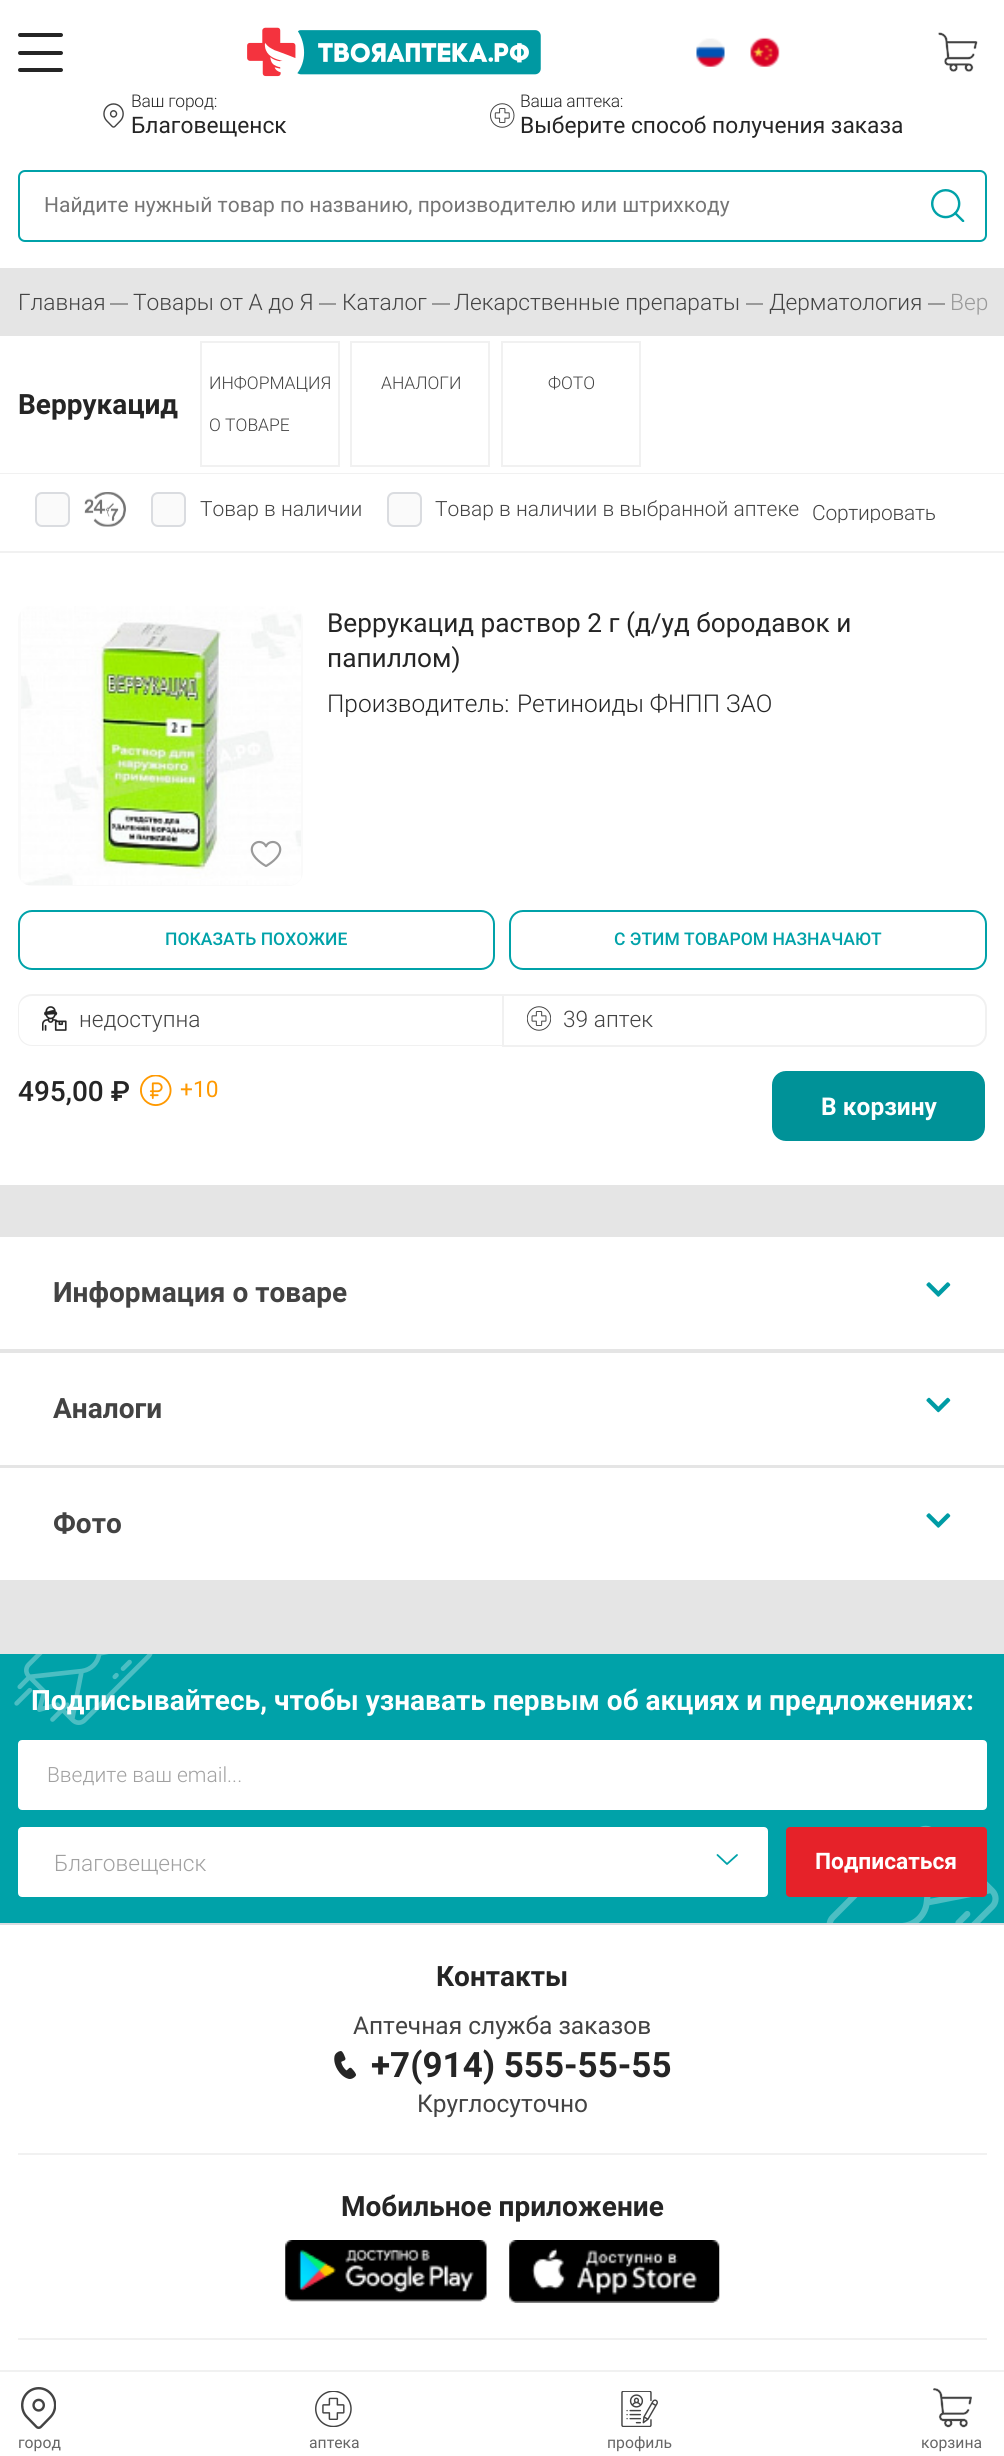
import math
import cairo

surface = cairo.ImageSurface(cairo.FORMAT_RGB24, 1004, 2456)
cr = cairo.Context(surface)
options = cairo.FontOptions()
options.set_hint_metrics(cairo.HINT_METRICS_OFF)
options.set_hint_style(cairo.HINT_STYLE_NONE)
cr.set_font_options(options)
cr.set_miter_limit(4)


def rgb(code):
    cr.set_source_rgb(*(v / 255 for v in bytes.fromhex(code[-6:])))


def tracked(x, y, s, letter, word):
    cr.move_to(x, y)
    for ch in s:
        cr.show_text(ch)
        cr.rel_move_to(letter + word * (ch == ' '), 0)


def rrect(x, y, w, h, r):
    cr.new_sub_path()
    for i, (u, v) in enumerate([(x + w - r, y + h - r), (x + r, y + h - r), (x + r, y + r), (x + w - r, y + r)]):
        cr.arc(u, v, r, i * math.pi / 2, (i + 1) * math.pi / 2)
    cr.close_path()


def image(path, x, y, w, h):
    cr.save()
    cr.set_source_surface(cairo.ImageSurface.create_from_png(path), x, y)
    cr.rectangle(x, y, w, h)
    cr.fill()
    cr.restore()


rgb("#e5e5e5")
cr.paint()
rgb("#ffffff")
cr.rectangle(0, 0, 1004, 268)
cr.fill()
rgb("#252525")
rrect(18, 33, 45, 4, 2)
cr.fill()
rrect(18, 51, 45, 4, 2)
cr.fill()
rrect(18, 68, 45, 4, 2)
cr.fill()
image("img/1.png", 247, 27, 294, 50)
image("img/2.png", 696, 38, 29, 29)
image("img/3.png", 750, 37, 30, 30)
image("img/4.png", 938, 32, 40, 40)
image("img/5.png", 103, 103, 21, 25)
image("img/6.png", 490, 103, 25, 25)
rrect(19, 171, 967, 70, 6)
rgb("#00a2a9")
cr.stroke()
image("img/7.png", 931, 189, 34, 33)
for x, y, w, h, color in [
    (110, 303, 18, 2, "#9a9a9a"),
    (319, 303, 17, 2, "#9a9a9a"),
    (432, 303, 18, 2, "#9a9a9a"),
    (746, 303, 17, 2, "#9a9a9a"),
    (928, 303, 17, 2, "#9a9a9a"),
    (0, 336, 1004, 137, "#ffffff"),
    (0, 473, 1004, 1, "#f1f1f1"),
]:
    rgb(color)
    cr.rectangle(x, y, w, h)
    cr.fill()
cr.rectangle(201, 342, 138, 124)
cr.stroke()
cr.rectangle(351, 342, 138, 124)
cr.stroke()
cr.rectangle(502, 342, 138, 124)
cr.stroke()
rgb("#ffffff")
cr.rectangle(0, 474, 1004, 77)
cr.fill()
rgb("#f1f1f1")
cr.rectangle(0, 551, 1004, 2)
cr.fill()
rgb("#fafafa")
rrect(36, 493, 33, 33, 6)
cr.fill_preserve()
rgb("#dadce0")
cr.stroke()
image("img/8.png", 84, 492, 42, 35)
rgb("#fafafa")
rrect(152, 493, 33, 33, 6)
cr.fill_preserve()
rgb("#dadce0")
cr.stroke()
rgb("#fafafa")
rrect(388, 493, 33, 33, 6)
cr.fill_preserve()
rgb("#dadce0")
cr.stroke()
rgb("#ffffff")
cr.rectangle(0, 553, 1004, 632)
cr.fill()
rgb("#fafafa")
rrect(18, 606, 285, 280, 14)
cr.fill()
image("img/9.png", 21, 606, 280, 279)
image("img/10.png", 250, 840, 32, 27)
rrect(19, 911, 475, 58, 13)
rgb("#00a2a9")
cr.stroke()
rrect(510, 911, 476, 58, 13)
cr.stroke()
image("img/11.png", 42, 1006, 25, 25)
rgb("#f1f1f1")
cr.set_fill_rule(cairo.FILL_RULE_EVEN_ODD)
cr.new_path()
cr.move_to(32, 994)
cr.line_to(502, 994)
cr.line_to(502, 1046)
cr.line_to(32, 1046)
cr.curve_to(24, 1046, 18, 1040, 18, 1032)
cr.line_to(18, 1008)
cr.curve_to(18, 1000, 24, 994, 32, 994)
cr.close_path()
cr.move_to(32, 996)
cr.line_to(502, 996)
cr.line_to(502, 1045)
cr.line_to(32, 1045)
cr.curve_to(25, 1045, 19, 1039, 19, 1032)
cr.line_to(19, 1008)
cr.curve_to(19, 1001, 25, 996, 32, 996)
cr.close_path()
cr.fill()
image("img/12.png", 527, 1006, 24, 25)
cr.new_path()
cr.move_to(503, 995)
cr.line_to(973, 995)
cr.curve_to(980, 995, 986, 1001, 986, 1008)
cr.line_to(986, 1033)
cr.curve_to(986, 1040, 980, 1046, 973, 1046)
cr.line_to(503, 1046)
cr.close_path()
cr.stroke()
image("img/13.png", 140, 1075, 32, 31)
rgb("#009298")
rrect(773, 1072, 211, 68, 13)
cr.fill_preserve()
cr.stroke()
rgb("#ffffff")
cr.rectangle(0, 1237, 1004, 112)
cr.fill()
image("img/14.png", 926, 1282, 25, 15)
cr.rectangle(0, 1353, 1004, 112)
cr.fill()
image("img/15.png", 926, 1397, 25, 16)
cr.rectangle(0, 1468, 1004, 112)
cr.fill()
image("img/14.png", 926, 1513, 25, 15)
rgb("#00a2a9")
cr.rectangle(0, 1654, 1004, 269)
cr.fill()
rgb("#ffffff")
rrect(19, 1741, 967, 68, 3)
cr.fill_preserve()
cr.stroke()
rrect(19, 1829, 748, 66, 2)
cr.fill()
cr.new_path()
cr.move_to(717.5, 1855)
cr.line_to(727, 1864)
cr.line_to(737, 1855)
rgb("#00a2a9")
cr.set_line_width(1.8)
cr.set_line_cap(cairo.LINE_CAP_ROUND)
cr.set_line_join(cairo.LINE_JOIN_ROUND)
cr.stroke()
rrect(19, 1828, 748, 68, 3)
rgb("#ffffff")
cr.set_line_width(2)
cr.set_line_cap(cairo.LINE_CAP_BUTT)
cr.set_line_join(cairo.LINE_JOIN_MITER)
cr.stroke()
image("img/17.png", 826, 1825, 173, 98)
rgb("#e62229")
rrect(786, 1827, 201, 70, 4)
cr.fill()
rgb("#ffffff")
cr.rectangle(0, 1925, 1004, 445)
cr.fill()
rgb("#dadce0")
cr.rectangle(0, 1923, 1004, 2)
cr.fill()
image("img/18.png", 334, 2051, 22, 28)
rgb("#f1f1f1")
cr.rectangle(18, 2153, 969, 2)
cr.fill()
image("img/19.png", 285, 2240, 202, 62)
image("img/20.png", 509, 2240, 211, 63)
for x, y, w, h, color in [
    (18, 2338, 969, 2, "#f1f1f1"),
    (0, 2372, 1004, 84, "#ffffff"),
    (0, 2370, 1004, 2, "#f1f1f1"),
]:
    rgb(color)
    cr.rectangle(x, y, w, h)
    cr.fill()
image("img/21.png", 21, 2387, 35, 42)
image("img/22.png", 315, 2391, 37, 36)
image("img/23.png", 621, 2391, 37, 36)
image("img/24.png", 933, 2388, 39, 40)
cr.select_font_face("Roboto Light")
cr.set_font_size(17.5)
rgb("#252525")
tracked(131, 107, "Ваш город:", -0.25, 0)
cr.select_font_face("Roboto")
cr.set_font_size(22.75)
cr.move_to(131, 133)
cr.show_text("Благовещенск")
cr.select_font_face("Roboto Light")
cr.set_font_size(17.5)
tracked(520, 107, "Ваша аптека:", -0.25, 0)
cr.select_font_face("Roboto")
cr.set_font_size(22.75)
cr.move_to(520, 133)
cr.show_text("Выберите способ получения заказа")
cr.set_font_size(21)
rgb("#757575")
cr.move_to(44, 212)
cr.show_text("Найдите нужный товар по названию, производителю или штрихкоду")
cr.select_font_face("Roboto Light")
cr.set_font_size(22.75)
rgb("#434343")
for x, y, s in [
    (18, 310, "Главная"),
    (133, 310, "Товары от А до Я"),
    (342, 310, "Каталог"),
    (454, 310, "Лекарственные препараты"),
    (769, 310, "Дерматология"),
]:
    cr.move_to(x, y)
    cr.show_text(s)
rgb("#9a9a9a")
cr.move_to(950, 310)
cr.show_text("Вер")
cr.select_font_face("Roboto", cairo.FONT_SLANT_NORMAL, cairo.FONT_WEIGHT_BOLD)
cr.set_font_size(28)
rgb("#252525")
cr.move_to(18, 414)
cr.show_text("Веррукацид")
cr.select_font_face("Roboto Light")
cr.set_font_size(17.5)
rgb("#434343")
for x, y, s in [
    (209, 389, "ИНФОРМАЦИЯ"),
    (209, 431, "О ТОВАРЕ"),
    (381, 389, "АНАЛОГИ"),
    (548, 389, "ФОТО"),
]:
    cr.move_to(x, y)
    cr.show_text(s)
cr.set_font_size(21)
cr.move_to(200, 516)
cr.show_text("Товар в наличии")
cr.move_to(435, 516)
cr.show_text("Товар в наличии в выбранной аптеке")
cr.save()
cr.set_fill_rule(cairo.FILL_RULE_WINDING)
cr.rectangle(812, 502, 126, 21)
cr.clip()
tracked(812, 520, "Сортировать", -0.25, 0)
cr.restore()
cr.select_font_face("Roboto")
cr.set_font_size(26.25)
rgb("#252525")
cr.move_to(327, 632)
cr.show_text("Веррукацид раствор 2 г (д/уд бородавок и")
cr.move_to(327, 667)
cr.show_text("папиллом)")
cr.select_font_face("Roboto Light")
cr.set_font_size(24.5)
cr.move_to(327, 712)
cr.show_text("Производитель:")
cr.move_to(517, 712)
cr.show_text("Ретиноиды ФНПП ЗАО")
cr.select_font_face("Roboto Medium")
cr.set_font_size(17.5)
rgb("#00a2a9")
cr.move_to(165, 945)
cr.show_text("ПОКАЗАТЬ ПОХОЖИЕ")
cr.move_to(614, 945)
cr.show_text("С ЭТИМ ТОВАРОМ НАЗНАЧАЮТ")
cr.select_font_face("Roboto Light")
cr.set_font_size(22.75)
rgb("#434343")
cr.move_to(79, 1027)
cr.show_text("недоступна")
cr.move_to(563, 1027)
cr.show_text("39 аптек")
cr.select_font_face("Roboto Medium")
cr.set_font_size(28)
rgb("#252525")
cr.move_to(18, 1101)
cr.show_text("495,00 ₽")
cr.select_font_face("Roboto")
cr.set_font_size(22.75)
rgb("#ff9900")
cr.move_to(180, 1097)
cr.show_text("+10")
cr.select_font_face("Roboto", cairo.FONT_SLANT_NORMAL, cairo.FONT_WEIGHT_BOLD)
cr.set_font_size(24.5)
rgb("#ffffff")
cr.move_to(821, 1115)
cr.show_text("В корзину")
cr.set_font_size(28)
rgb("#434343")
for x, y, s in [
    (53, 1302, "Информация о товаре"),
    (53, 1418, "Аналоги"),
    (53, 1533, "Фото"),
]:
    cr.move_to(x, y)
    cr.show_text(s)
rgb("#ffffff")
cr.move_to(31, 1710)
cr.show_text("Подписывайтесь, чтобы узнавать первым об акцияx и предложениях:")
image("img/16.png", 14, 1654, 139, 71)
cr.select_font_face("Roboto Light")
cr.set_font_size(21)
rgb("#a1a1a1")
cr.move_to(47, 1782)
cr.show_text("Введите ваш email...")
cr.set_font_size(22.75)
cr.move_to(54, 1871)
cr.show_text("Благовещенск")
cr.select_font_face("Roboto", cairo.FONT_SLANT_NORMAL, cairo.FONT_WEIGHT_BOLD)
rgb("#ffffff")
cr.move_to(815, 1869)
cr.show_text("Подписаться")
cr.set_font_size(28)
rgb("#252525")
cr.move_to(436, 1986)
cr.show_text("Контакты")
cr.select_font_face("Roboto")
cr.set_font_size(24.5)
rgb("#434343")
cr.move_to(353, 2034)
cr.show_text("Аптечная служба заказов")
cr.select_font_face("Roboto", cairo.FONT_SLANT_NORMAL, cairo.FONT_WEIGHT_BOLD)
cr.set_font_size(35)
rgb("#252525")
cr.move_to(371, 2077)
cr.show_text("+7(914) 555-55-55")
cr.select_font_face("Roboto")
cr.set_font_size(24.5)
rgb("#434343")
cr.move_to(417, 2112)
cr.show_text("Круглосуточно")
cr.select_font_face("Roboto", cairo.FONT_SLANT_NORMAL, cairo.FONT_WEIGHT_BOLD)
cr.set_font_size(28)
rgb("#252525")
cr.move_to(341, 2216)
cr.show_text("Мобильное приложение")
cr.select_font_face("Roboto")
cr.set_font_size(15.75)
rgb("#666666")
for x, y, s in [
    (18, 2448, "город"),
    (309, 2448, "аптека"),
    (607, 2448, "профиль"),
    (921, 2448, "корзина"),
]:
    cr.move_to(x, y)
    cr.show_text(s)
surface.write_to_png("page.png")
